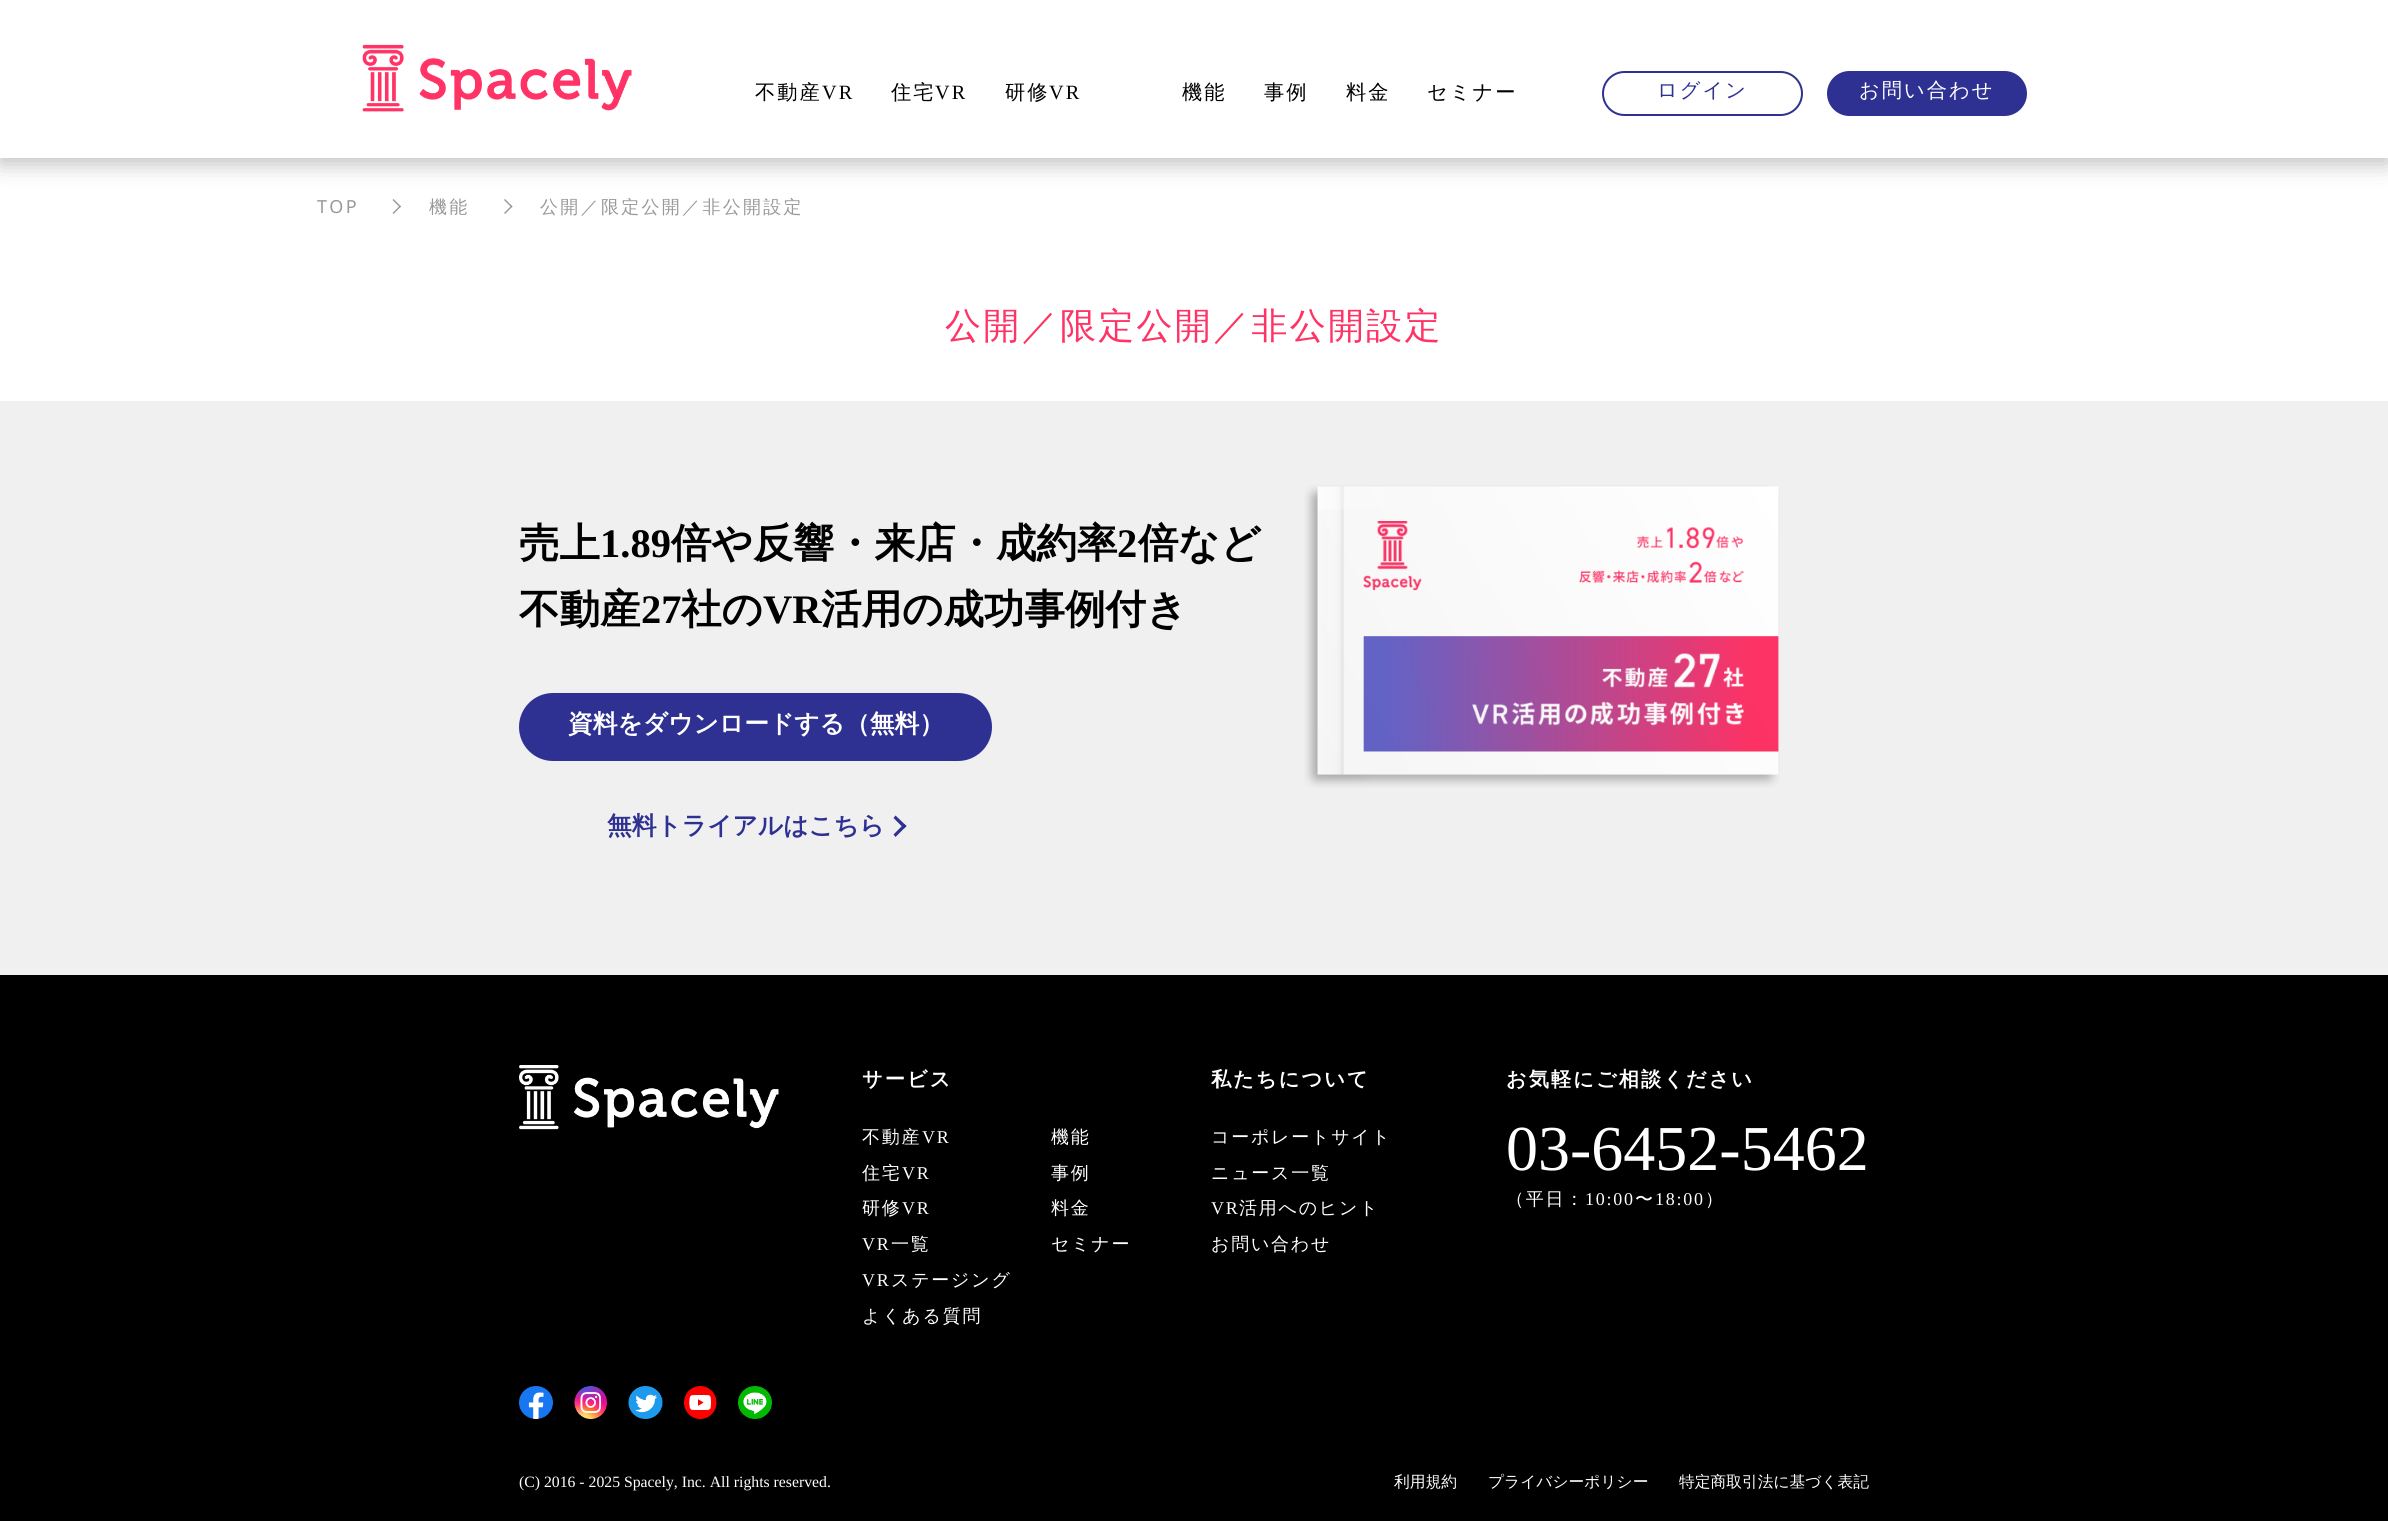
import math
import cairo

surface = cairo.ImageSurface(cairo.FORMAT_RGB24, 2388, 1521)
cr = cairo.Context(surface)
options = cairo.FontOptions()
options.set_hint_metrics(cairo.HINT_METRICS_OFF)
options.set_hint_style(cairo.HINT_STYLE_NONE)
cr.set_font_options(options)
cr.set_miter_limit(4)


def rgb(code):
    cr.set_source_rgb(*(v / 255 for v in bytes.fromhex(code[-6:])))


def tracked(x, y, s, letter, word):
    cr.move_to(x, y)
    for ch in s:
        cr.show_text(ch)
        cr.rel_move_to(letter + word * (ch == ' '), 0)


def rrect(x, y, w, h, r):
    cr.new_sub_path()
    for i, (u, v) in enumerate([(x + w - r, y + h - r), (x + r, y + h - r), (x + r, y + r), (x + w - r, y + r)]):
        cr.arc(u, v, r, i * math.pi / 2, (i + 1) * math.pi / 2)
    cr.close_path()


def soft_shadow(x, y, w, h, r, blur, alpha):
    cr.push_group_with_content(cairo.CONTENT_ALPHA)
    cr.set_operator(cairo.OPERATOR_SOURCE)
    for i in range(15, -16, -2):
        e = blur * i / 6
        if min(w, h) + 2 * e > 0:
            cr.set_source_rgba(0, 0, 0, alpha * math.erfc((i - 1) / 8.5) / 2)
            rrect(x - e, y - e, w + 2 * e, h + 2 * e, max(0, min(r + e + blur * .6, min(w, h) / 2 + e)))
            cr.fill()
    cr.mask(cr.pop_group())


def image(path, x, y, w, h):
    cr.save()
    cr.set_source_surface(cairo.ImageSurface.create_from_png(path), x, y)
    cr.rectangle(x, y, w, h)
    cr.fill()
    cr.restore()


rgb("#ffffff")
cr.paint()
rgb("#000000")
soft_shadow(0, 6, 2388, 158, 0, 11, 0.25)
rgb("#ffffff")
cr.rectangle(0, 0, 2388, 158)
cr.fill()
image("img/1.png", 362, 44, 270, 68)
rrect(1603, 72, 199, 43, 21.5)
rgb("#2e3192")
cr.stroke()
rrect(1827, 71, 200, 45, 22.5)
cr.fill()
rgb("#979797")
cr.new_path()
cr.move_to(393.5, 199)
cr.line_to(401, 206.5)
cr.line_to(400, 207.5)
cr.line_to(392.5, 200)
cr.close_path()
cr.fill()
cr.new_path()
cr.move_to(400, 205.5)
cr.line_to(401, 206.5)
cr.line_to(393.5, 214)
cr.line_to(392.5, 213)
cr.close_path()
cr.fill()
cr.new_path()
cr.move_to(505, 199)
cr.line_to(512.5, 206.5)
cr.line_to(511.5, 207.5)
cr.line_to(504, 200)
cr.close_path()
cr.fill()
cr.new_path()
cr.move_to(511.5, 205.5)
cr.line_to(512.5, 206.5)
cr.line_to(505, 214)
cr.line_to(504, 213)
cr.close_path()
cr.fill()
rgb("#f0f0f0")
cr.rectangle(0, 401, 2388, 574)
cr.fill()
rgb("#2e3192")
rrect(520.5, 694.5, 470, 65, 32.5)
cr.fill_preserve()
cr.set_line_width(3)
cr.stroke()
cr.new_path()
cr.move_to(895.5, 815.5)
cr.line_to(906.5, 826)
cr.line_to(904, 828.5)
cr.line_to(893.5, 818)
cr.close_path()
cr.fill()
cr.new_path()
cr.move_to(904, 824)
cr.line_to(906.5, 826)
cr.line_to(895.5, 837)
cr.line_to(893.5, 834.5)
cr.close_path()
cr.fill()
image("img/2.png", 1304, 485, 476, 303)
rgb("#000000")
cr.rectangle(0, 975, 2388, 546)
cr.fill()
image("img/3.png", 519, 1065, 260, 65)
image("img/4.png", 519, 1386, 34, 33)
image("img/5.png", 574, 1386, 33, 33)
image("img/6.png", 628, 1386, 35, 33)
image("img/7.png", 684, 1386, 33, 33)
image("img/8.png", 738, 1386, 34, 33)
cr.select_font_face("WenQuanYi Zen Hei Medium")
cr.set_font_size(20.25)
tracked(755, 99, "不動産", 2, 0)
cr.select_font_face("Liberation Serif")
tracked(822, 99, "VR", 2, 0)
cr.select_font_face("WenQuanYi Zen Hei Medium")
tracked(891, 99, "住宅", 2, 0)
cr.select_font_face("Liberation Serif")
tracked(935, 99, "VR", 2, 0)
cr.select_font_face("WenQuanYi Zen Hei Medium")
tracked(1005, 99, "研修", 2, 0)
cr.select_font_face("Liberation Serif")
tracked(1049, 99, "VR", 2, 0)
cr.select_font_face("WenQuanYi Zen Hei Medium")
for x, y, s in [
    (1182, 99, "機能"),
    (1264, 99, "事例"),
    (1346, 99, "料金"),
    (1427, 99, "セミナー"),
]:
    tracked(x, y, s, 2, 0)
rgb("#2e3192")
tracked(1657, 97, "ログイン", 2, 0)
rgb("#ffffff")
tracked(1859, 97, "お問い合わせ", 2, 0)
cr.select_font_face("Noto Sans")
cr.set_font_size(18)
rgb("#999999")
tracked(317, 213, "TOP", 2.3, 0)
cr.select_font_face("WenQuanYi Zen Hei Medium")
tracked(429, 213, "機能", 2.3, 0)
tracked(540, 213, "公開／限定公開／非公開設定", 2.3, 0)
cr.set_font_size(36)
rgb("#ff3366")
tracked(945, 338, "公開／限定公開／非公開設定", 2.3, 0)
cr.select_font_face("WenQuanYi Zen Hei", cairo.FONT_SLANT_NORMAL, cairo.FONT_WEIGHT_BOLD)
cr.set_font_size(40.5)
rgb("#000000")
cr.move_to(519, 557)
cr.show_text("売上")
cr.select_font_face("Liberation Serif", cairo.FONT_SLANT_NORMAL, cairo.FONT_WEIGHT_BOLD)
cr.move_to(600, 557)
cr.show_text("1.89")
cr.select_font_face("WenQuanYi Zen Hei", cairo.FONT_SLANT_NORMAL, cairo.FONT_WEIGHT_BOLD)
cr.move_to(671, 557)
cr.show_text("倍や反響・来店・成約率")
cr.select_font_face("Liberation Serif", cairo.FONT_SLANT_NORMAL, cairo.FONT_WEIGHT_BOLD)
cr.move_to(1117, 557)
cr.show_text("2")
cr.select_font_face("WenQuanYi Zen Hei", cairo.FONT_SLANT_NORMAL, cairo.FONT_WEIGHT_BOLD)
cr.move_to(1138, 557)
cr.show_text("倍など")
cr.move_to(519, 623)
cr.show_text("不動産")
cr.select_font_face("Liberation Serif", cairo.FONT_SLANT_NORMAL, cairo.FONT_WEIGHT_BOLD)
cr.move_to(641, 623)
cr.show_text("27")
cr.select_font_face("WenQuanYi Zen Hei", cairo.FONT_SLANT_NORMAL, cairo.FONT_WEIGHT_BOLD)
cr.move_to(681, 623)
cr.show_text("社の")
cr.select_font_face("Liberation Serif", cairo.FONT_SLANT_NORMAL, cairo.FONT_WEIGHT_BOLD)
cr.move_to(763, 623)
cr.show_text("VR")
cr.select_font_face("WenQuanYi Zen Hei", cairo.FONT_SLANT_NORMAL, cairo.FONT_WEIGHT_BOLD)
cr.move_to(821, 623)
cr.show_text("活用の成功事例付き")
cr.set_font_size(24.75)
rgb("#ffffff")
cr.move_to(568, 732)
cr.show_text("資料をダウンロードする（無料）")
rgb("#2e3192")
cr.move_to(607, 834)
cr.show_text("無料トライアルはこちら")
cr.set_font_size(20.25)
rgb("#ffffff")
tracked(862, 1086, "サービス", 2, 0)
cr.select_font_face("WenQuanYi Zen Hei Medium")
cr.set_font_size(18)
tracked(862, 1143, "不動産", 1.75, 0)
cr.select_font_face("Liberation Serif")
tracked(922, 1143, "VR", 1.75, 0)
cr.select_font_face("WenQuanYi Zen Hei Medium")
tracked(862, 1179, "住宅", 1.75, 0)
cr.select_font_face("Liberation Serif")
tracked(902, 1179, "VR", 1.75, 0)
cr.select_font_face("WenQuanYi Zen Hei Medium")
tracked(862, 1214, "研修", 1.75, 0)
cr.select_font_face("Liberation Serif")
tracked(902, 1214, "VR", 1.75, 0)
tracked(862, 1250, "VR", 1.75, 0)
cr.select_font_face("WenQuanYi Zen Hei Medium")
tracked(891, 1250, "一覧", 1.75, 0)
cr.select_font_face("Liberation Serif")
tracked(862, 1286, "VR", 1.75, 0)
cr.select_font_face("WenQuanYi Zen Hei Medium")
for x, y, s in [
    (891, 1286, "ステージング"),
    (862, 1322, "よくある質問"),
    (1051, 1143, "機能"),
    (1051, 1179, "事例"),
    (1051, 1214, "料金"),
    (1051, 1250, "セミナー"),
]:
    tracked(x, y, s, 1.75, 0)
cr.select_font_face("WenQuanYi Zen Hei", cairo.FONT_SLANT_NORMAL, cairo.FONT_WEIGHT_BOLD)
cr.set_font_size(20.25)
tracked(1211, 1086, "私たちについて", 2, 0)
cr.select_font_face("WenQuanYi Zen Hei Medium")
cr.set_font_size(18)
tracked(1211, 1143, "コーポレートサイト", 1.75, 0)
tracked(1211, 1179, "ニュース一覧", 1.75, 0)
cr.select_font_face("Liberation Serif")
tracked(1211, 1214, "VR", 1.75, 0)
cr.select_font_face("WenQuanYi Zen Hei Medium")
tracked(1239, 1214, "活用へのヒント", 1.75, 0)
tracked(1211, 1250, "お問い合わせ", 1.75, 0)
cr.select_font_face("WenQuanYi Zen Hei", cairo.FONT_SLANT_NORMAL, cairo.FONT_WEIGHT_BOLD)
cr.set_font_size(20.25)
tracked(1506, 1086, "お気軽にご相談ください", 2, 0)
cr.select_font_face("Liberation Serif")
cr.set_font_size(64)
cr.move_to(1506, 1170)
cr.show_text("03-6452-5462")
cr.select_font_face("WenQuanYi Zen Hei Medium")
cr.set_font_size(18)
tracked(1506, 1205, "（平日：", 1.75, 0)
cr.select_font_face("Liberation Serif")
tracked(1585, 1205, "10:00", 1.75, 0)
cr.select_font_face("WenQuanYi Zen Hei Medium")
tracked(1635, 1205, "〜", 1.75, 0)
cr.select_font_face("Liberation Serif")
tracked(1655, 1205, "18:00", 1.75, 0)
cr.select_font_face("WenQuanYi Zen Hei Medium")
tracked(1705, 1205, "）", 1.75, 0)
cr.select_font_face("Liberation Serif")
cr.set_font_size(15.75)
cr.move_to(519, 1487)
cr.show_text("(C) 2016 - 2025 Spacely, Inc. All rights reserved.")
cr.select_font_face("WenQuanYi Zen Hei Medium")
for x, y, s in [
    (1394, 1487, "利用規約"),
    (1488, 1487, "プライバシーポリシー"),
    (1679, 1487, "特定商取引法に基づく表記"),
]:
    cr.move_to(x, y)
    cr.show_text(s)
surface.write_to_png("page.png")
